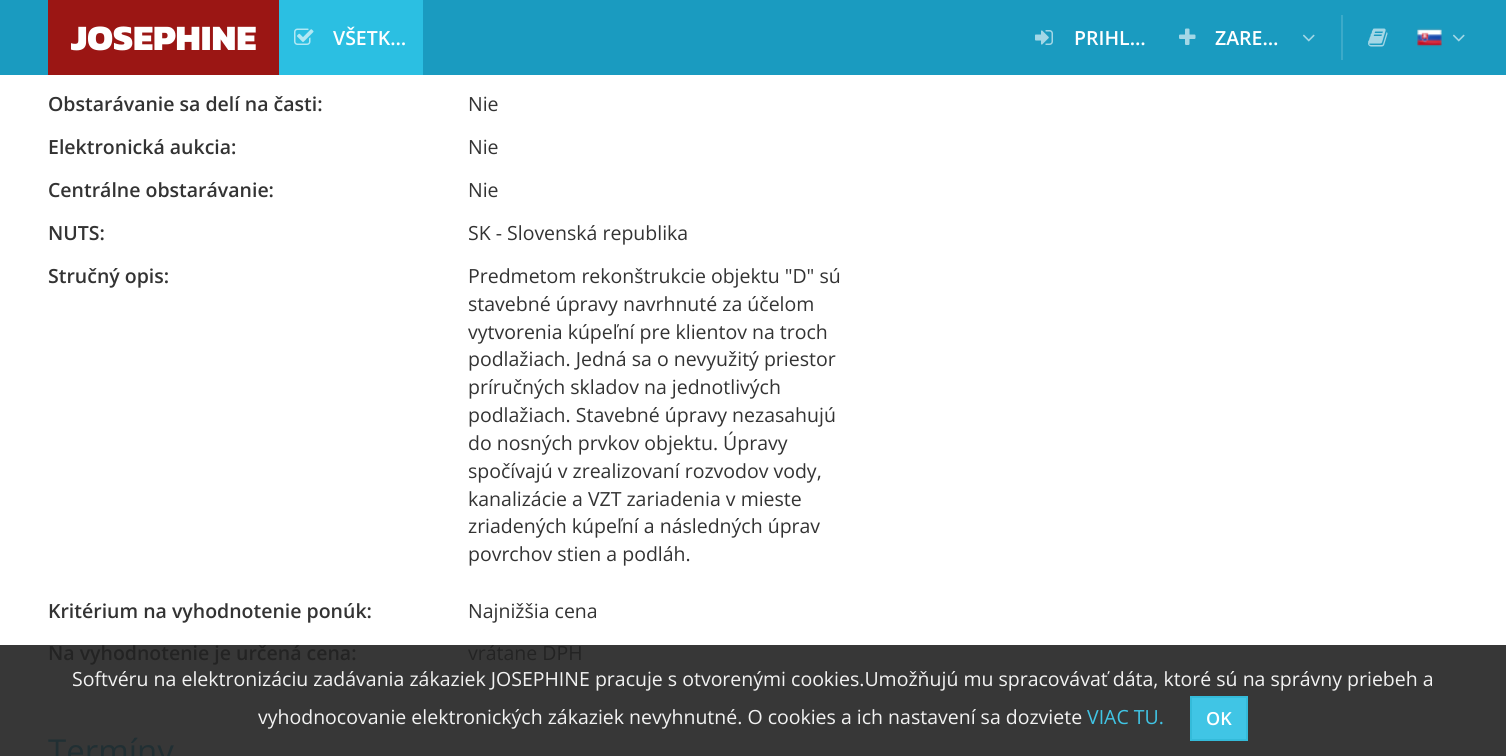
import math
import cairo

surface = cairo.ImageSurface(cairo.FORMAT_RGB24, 1506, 756)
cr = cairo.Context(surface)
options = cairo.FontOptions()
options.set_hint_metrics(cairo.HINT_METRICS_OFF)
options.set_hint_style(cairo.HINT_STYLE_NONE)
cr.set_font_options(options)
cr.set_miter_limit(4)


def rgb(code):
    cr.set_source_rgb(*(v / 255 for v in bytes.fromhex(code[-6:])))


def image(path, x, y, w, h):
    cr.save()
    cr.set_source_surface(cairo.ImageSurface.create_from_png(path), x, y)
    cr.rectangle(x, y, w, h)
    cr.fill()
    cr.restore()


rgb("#ffffff")
cr.paint()
for x, y, w, h, color in [
    (0, 645, 1506, 111, "#373737"),
    (0, 0, 1506, 75, "#1a9bc0"),
    (48, 0, 231, 75, "#9b1614"),
    (279, 0, 144, 75, "#2bbfe2"),
]:
    rgb(color)
    cr.rectangle(x, y, w, h)
    cr.fill()
image("img/1.png", 294, 28, 20, 17)
image("img/2.png", 1035, 30, 18, 15)
image("img/3.png", 1179, 28, 17, 17)
image("img/4.png", 1303, 34, 12, 8)
rgb("#3caac9")
cr.rectangle(1341, 15, 2, 45)
cr.fill()
image("img/5.png", 1368, 28, 20, 19)
image("img/6.png", 1417, 28, 25, 19)
image("img/4.png", 1453, 34, 12, 8)
rgb("#40c5e5")
cr.rectangle(1191, 697, 56, 43)
cr.fill_preserve()
rgb("#34bbda")
cr.stroke()
cr.select_font_face("Kanit ExtraBold")
cr.set_font_size(36)
rgb("#ffffff")
cr.move_to(71, 50)
cr.show_text("JOSEPHINE")
cr.select_font_face("Open Sans SemiBold")
cr.set_font_size(19.5)
for x, y, s in [
    (333, 45, "VŠETK…"),
    (1074, 45, "PRIHL…"),
    (1215, 45, "ZARE…"),
]:
    cr.move_to(x, y)
    cr.show_text(s)
rgb("#333333")
cr.move_to(48, 111)
cr.show_text("Obstarávanie sa delí na časti:")
cr.select_font_face("Open Sans")
cr.move_to(468, 111)
cr.show_text("Nie")
cr.select_font_face("Open Sans SemiBold")
cr.move_to(48, 154)
cr.show_text("Elektronická aukcia:")
cr.select_font_face("Open Sans")
cr.move_to(468, 154)
cr.show_text("Nie")
cr.select_font_face("Open Sans SemiBold")
cr.move_to(48, 197)
cr.show_text("Centrálne obstarávanie:")
cr.select_font_face("Open Sans")
cr.move_to(468, 197)
cr.show_text("Nie")
cr.select_font_face("Open Sans SemiBold")
cr.move_to(48, 240)
cr.show_text("NUTS:")
cr.select_font_face("Open Sans")
cr.move_to(468, 240)
cr.show_text("SK - Slovenská republika")
cr.select_font_face("Open Sans SemiBold")
cr.move_to(48, 283)
cr.show_text("Stručný opis:")
cr.select_font_face("Open Sans")
for x, y, s in [
    (468, 283, "Predmetom rekonštrukcie objektu \"D\" sú"),
    (468, 311, "stavebné úpravy navrhnuté za účelom"),
    (468, 339, "vytvorenia kúpeľní pre klientov na troch"),
    (468, 366, "podlažiach. Jedná sa o nevyužitý priestor"),
    (468, 394, "príručných skladov na jednotlivých"),
    (468, 422, "podlažiach. Stavebné úpravy nezasahujú"),
    (468, 450, "do nosných prvkov objektu. Úpravy"),
    (468, 478, "spočívajú v zrealizovaní rozvodov vody,"),
    (468, 506, "kanalizácie a VZT zariadenia v mieste"),
    (468, 533, "zriadených kúpeľní a následných úprav"),
    (468, 561, "povrchov stien a podláh."),
]:
    cr.move_to(x, y)
    cr.show_text(s)
cr.select_font_face("Open Sans SemiBold")
cr.move_to(48, 618)
cr.show_text("Kritérium na vyhodnotenie ponúk:")
cr.select_font_face("Open Sans")
cr.move_to(468, 618)
cr.show_text("Najnižšia cena")
cr.select_font_face("Open Sans SemiBold")
rgb("#232323")
cr.move_to(48, 660)
cr.show_text("Na vyhodnotenie je určená cena:")
cr.select_font_face("Open Sans")
cr.move_to(468, 660)
cr.show_text("vrátane DPH")
cr.set_font_size(33)
rgb("#212f33")
cr.move_to(48, 763)
cr.show_text("Termíny")
cr.set_font_size(19.5)
rgb("#f2f2f2")
cr.move_to(72, 686)
cr.show_text("Softvéru na elektronizáciu zadávania zákaziek JOSEPHINE pracuje s otvorenými cookies.Umožňujú mu spracovávať dáta, ktoré sú na správny priebeh a")
cr.move_to(258, 724)
cr.show_text("vyhodnocovanie elektronických zákaziek nevyhnutné. O cookies a ich nastavení sa dozviete")
rgb("#40c5e5")
cr.move_to(1087, 724)
cr.show_text("VIAC TU.")
cr.select_font_face("Open Sans SemiBold")
cr.set_font_size(18)
rgb("#ffffff")
cr.move_to(1206, 725)
cr.show_text("OK")
surface.write_to_png("page.png")
